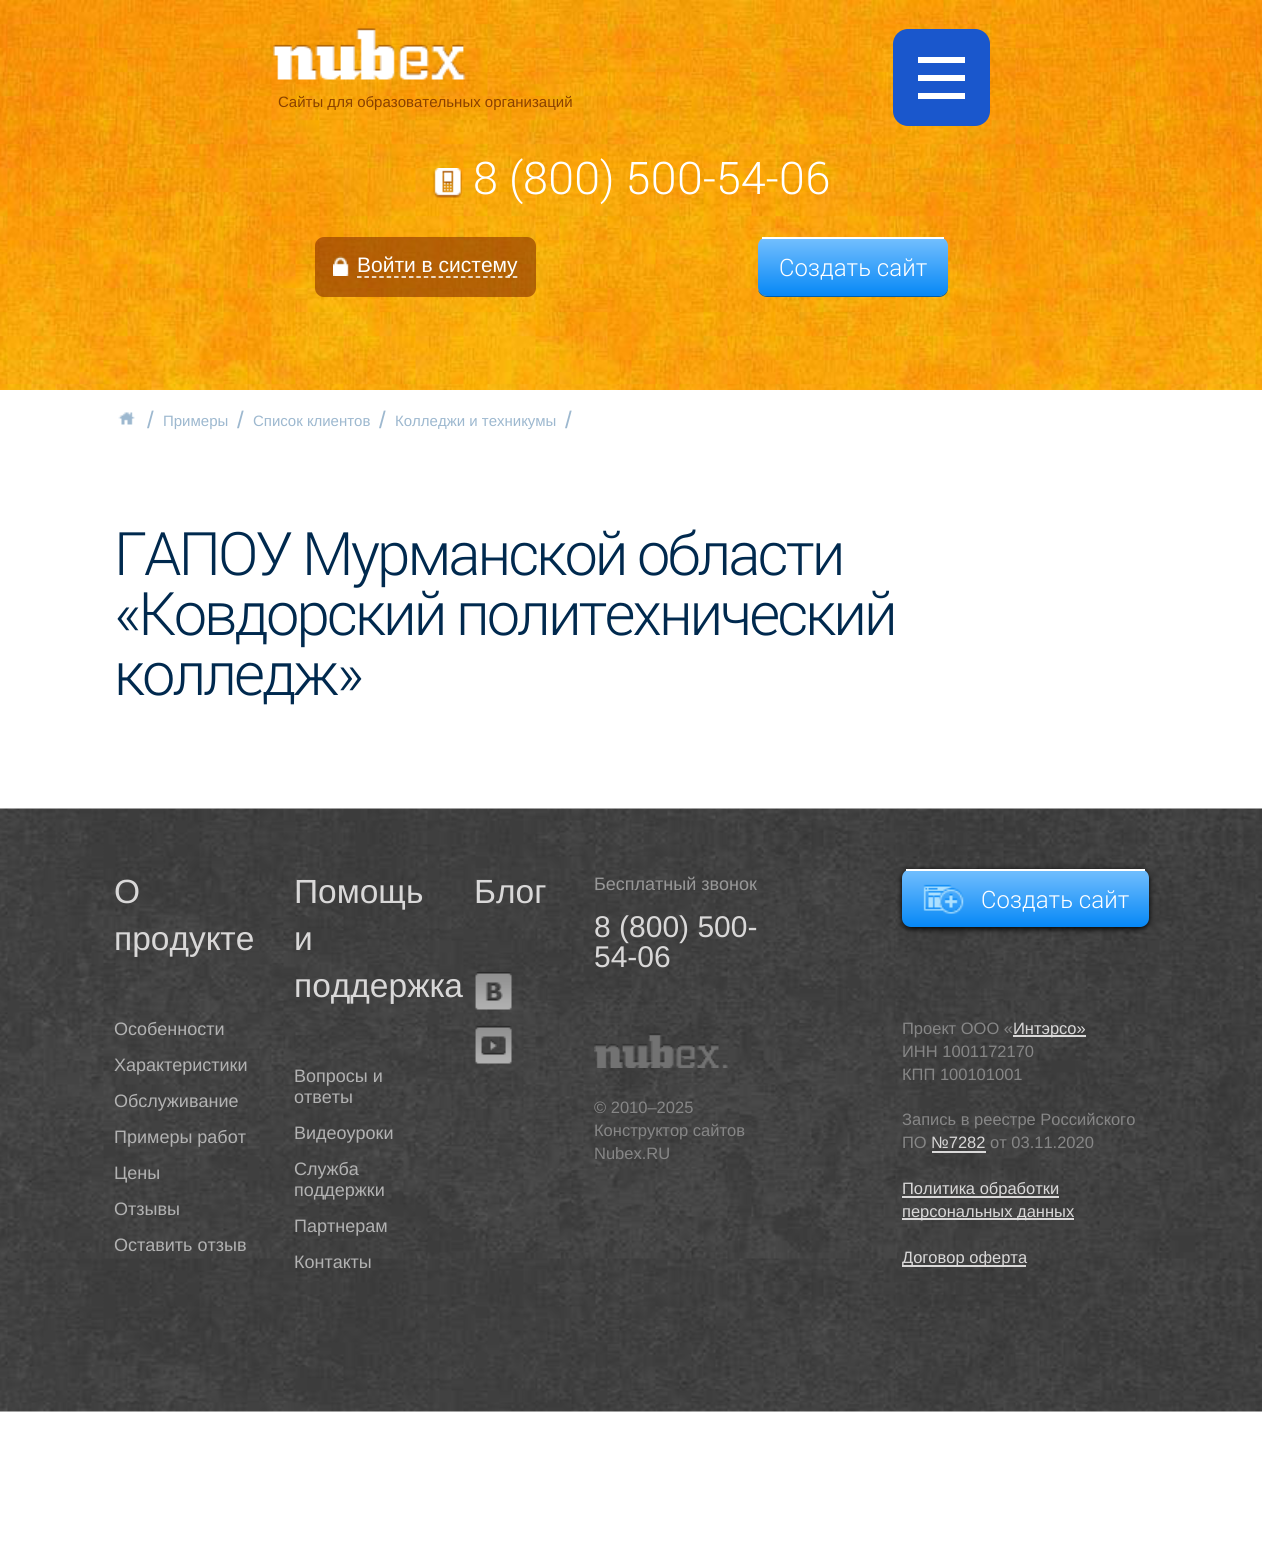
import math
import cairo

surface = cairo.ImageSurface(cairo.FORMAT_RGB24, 1262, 1549)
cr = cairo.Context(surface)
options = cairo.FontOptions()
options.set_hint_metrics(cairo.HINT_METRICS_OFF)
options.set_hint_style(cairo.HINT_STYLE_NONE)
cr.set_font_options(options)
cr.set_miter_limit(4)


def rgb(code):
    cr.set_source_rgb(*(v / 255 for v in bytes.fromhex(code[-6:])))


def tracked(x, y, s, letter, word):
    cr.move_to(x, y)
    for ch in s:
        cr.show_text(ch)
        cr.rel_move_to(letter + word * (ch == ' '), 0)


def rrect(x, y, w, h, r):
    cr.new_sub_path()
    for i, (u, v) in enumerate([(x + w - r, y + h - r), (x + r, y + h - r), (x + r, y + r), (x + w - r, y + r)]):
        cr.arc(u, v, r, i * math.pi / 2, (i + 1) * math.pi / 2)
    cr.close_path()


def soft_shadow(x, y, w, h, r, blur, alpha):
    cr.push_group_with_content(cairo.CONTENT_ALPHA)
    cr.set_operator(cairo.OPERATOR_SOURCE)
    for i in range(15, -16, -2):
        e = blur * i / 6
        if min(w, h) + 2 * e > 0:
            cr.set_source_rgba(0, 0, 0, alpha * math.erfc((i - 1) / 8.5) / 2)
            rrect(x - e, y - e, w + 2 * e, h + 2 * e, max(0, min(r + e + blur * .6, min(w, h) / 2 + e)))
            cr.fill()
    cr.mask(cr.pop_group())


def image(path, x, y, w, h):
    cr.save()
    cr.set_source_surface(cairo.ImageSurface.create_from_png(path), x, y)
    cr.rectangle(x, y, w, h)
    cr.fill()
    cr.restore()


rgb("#ffffff")
cr.paint()
image("img/1.png", 0, 0, 1262, 390)
image("img/2.png", 273, 28, 193, 52)
rgb("#1a57cc")
rrect(893, 29, 97, 97, 15)
cr.fill()
for x, y, w, h, color in [
    (918, 57, 47, 6, "#ffffff"),
    (918, 75, 47, 6, "#ffffff"),
    (918, 93, 47, 6, "#ffffff"),
]:
    rgb(color)
    cr.rectangle(x, y, w, h)
    cr.fill()
image("img/3.png", 433, 168, 29, 30)
cr.set_source_rgba(0.525, 0.188, 0, 0.6)
rrect(315, 237, 221, 60, 9)
cr.fill()
image("img/4.png", 333, 256, 16, 20)
cr.new_path()
cr.move_to(357, 277)
cr.line_to(517.5, 277)
rgb("#ffffff")
cr.set_line_width(1.5)
cr.set_dash([4.5, 2.92])
cr.stroke()
rgb("#005ba9")
cr.new_path()
cr.move_to(758, 290)
cr.curve_to(759, 294, 763, 297, 767, 297)
cr.line_to(939, 297)
cr.curve_to(944, 297, 948, 293, 948, 288)
cr.line_to(948, 286)
cr.curve_to(948, 291, 944, 296, 939, 296)
cr.line_to(766, 296)
cr.curve_to(763, 296, 760, 293, 758, 290)
cr.close_path()
cr.fill()
cr.save()
rrect(758, 237, 190, 59, 9)
cr.clip()
gradient = cairo.LinearGradient(853, 239, 853, 296)
gradient.add_color_stop_rgba(0, 0.447, 0.745, 0.996, 1)
gradient.add_color_stop_rgba(1, 0.024, 0.533, 0.965, 1)
cr.set_source(gradient)
cr.new_path()
cr.move_to(758, 239)
cr.line_to(948, 239)
cr.line_to(948, 287)
cr.curve_to(948, 292, 944, 296, 939, 296)
cr.line_to(767, 296)
cr.curve_to(762, 296, 758, 292, 758, 287)
cr.close_path()
cr.fill()
cr.restore()
rgb("#ffffff")
cr.rectangle(762, 237, 182, 2)
cr.fill()
image("img/5.png", 118, 412, 17, 13)
image("img/6.png", 0, 808, 1262, 604)
image("img/7.png", 475, 972, 37, 38)
image("img/8.png", 475, 1025, 37, 39)
image("img/9.png", 594, 1033, 134, 35)
rgb("#000000")
soft_shadow(902, 870, 247, 59, 9, 3, 1)
cr.save()
rrect(902, 869, 247, 58, 9)
cr.clip()
gradient = cairo.LinearGradient(1025, 870, 1025, 927)
gradient.add_color_stop_rgba(0, 0.447, 0.745, 0.996, 1)
gradient.add_color_stop_rgba(1, 0.024, 0.533, 0.965, 1)
cr.set_source(gradient)
cr.new_path()
cr.move_to(902, 870)
cr.line_to(1149, 870)
cr.line_to(1149, 918)
cr.curve_to(1149, 923, 1145, 927, 1140, 927)
cr.line_to(911, 927)
cr.curve_to(906, 927, 902, 923, 902, 918)
cr.close_path()
cr.fill()
cr.restore()
rgb("#ffffff")
cr.rectangle(906, 869, 239, 2)
cr.fill()
image("img/10.png", 923, 884, 41, 30)
for x, y, w, h, color in [
    (1013, 1035, 73, 2, "#d9d8d8"),
    (932, 1151, 54, 2, "#d9d8d8"),
    (902, 1196, 157, 2, "#d9d8d8"),
    (902, 1218, 172, 2, "#d9d8d8"),
    (902, 1265, 124, 2, "#d9d8d8"),
]:
    rgb(color)
    cr.rectangle(x, y, w, h)
    cr.fill()
cr.select_font_face("Liberation Sans")
cr.set_font_size(15)
rgb("#8a4100")
cr.move_to(278, 107)
cr.show_text("Сайты для образовательных организаций")
cr.select_font_face("Roboto Light")
cr.set_font_size(45)
rgb("#ffffff")
cr.move_to(473, 194)
cr.show_text("8 (800) 500-54-06")
cr.select_font_face("Liberation Sans")
cr.set_font_size(21)
cr.move_to(357, 272)
cr.show_text("Войти в систему")
cr.select_font_face("Roboto Light")
cr.set_font_size(24)
cr.move_to(779, 276)
cr.show_text("Создать сайт")
cr.select_font_face("Liberation Sans")
rgb("#9db8cf")
cr.move_to(147, 428)
cr.show_text("/")
cr.set_font_size(15)
cr.move_to(163, 426)
cr.show_text("Примеры")
cr.set_font_size(24)
cr.move_to(237, 428)
cr.show_text("/")
cr.set_font_size(15)
cr.move_to(253, 426)
cr.show_text("Список клиентов")
cr.set_font_size(24)
cr.move_to(379, 428)
cr.show_text("/")
cr.set_font_size(15)
cr.move_to(395, 426)
cr.show_text("Колледжи и техникумы")
cr.set_font_size(24)
cr.move_to(565, 428)
cr.show_text("/")
cr.select_font_face("Roboto Light")
cr.set_font_size(60)
rgb("#00294e")
for x, y, s in [
    (114, 575, "ГАПОУ Мурманской области"),
    (114, 635, "«Ковдорский политехнический"),
    (114, 695, "колледж»"),
]:
    tracked(x, y, s, -3, 0)
cr.select_font_face("Liberation Sans")
cr.set_font_size(33.5)
rgb("#d9d8d8")
cr.move_to(114, 903)
cr.show_text("О")
cr.move_to(114, 950)
cr.show_text("продукте")
cr.set_font_size(18)
rgb("#b2b2b2")
for x, y, s in [
    (114, 1035, "Особенности"),
    (114, 1071, "Характеристики"),
    (114, 1107, "Обслуживание"),
    (114, 1143, "Примеры работ"),
    (114, 1179, "Цены"),
    (114, 1215, "Отзывы"),
    (114, 1251, "Оставить отзыв"),
]:
    cr.move_to(x, y)
    cr.show_text(s)
cr.set_font_size(33.5)
rgb("#d9d8d8")
for x, y, s in [
    (294, 903, "Помощь"),
    (294, 950, "и"),
    (294, 997, "поддержка"),
]:
    cr.move_to(x, y)
    cr.show_text(s)
cr.set_font_size(18)
rgb("#b2b2b2")
for x, y, s in [
    (294, 1082, "Вопросы и"),
    (294, 1103, "ответы"),
    (294, 1139, "Видеоуроки"),
    (294, 1175, "Служба"),
    (294, 1196, "поддержки"),
    (294, 1232, "Партнерам"),
    (294, 1268, "Контакты"),
]:
    cr.move_to(x, y)
    cr.show_text(s)
cr.set_font_size(33.5)
rgb("#d9d8d8")
cr.move_to(474, 903)
cr.show_text("Блог")
cr.set_font_size(18)
rgb("#989898")
cr.move_to(594, 890)
cr.show_text("Бесплатный звонок")
cr.set_font_size(30)
rgb("#d9d8d8")
cr.move_to(594, 937)
cr.show_text("8 (800) 500-")
cr.move_to(594, 967)
cr.show_text("54-06")
cr.set_font_size(16.5)
rgb("#868686")
for x, y, s in [
    (594, 1113, "© 2010–2025"),
    (594, 1136, "Конструктор сайтов"),
    (594, 1159, "Nubex.RU"),
]:
    cr.move_to(x, y)
    cr.show_text(s)
cr.select_font_face("Roboto Light")
cr.set_font_size(24)
rgb("#ffffff")
cr.move_to(981, 908)
cr.show_text("Создать сайт")
cr.select_font_face("Liberation Sans")
cr.set_font_size(16.5)
rgb("#868686")
cr.move_to(902, 1034)
cr.show_text("Проект ООО «")
rgb("#d9d8d8")
cr.move_to(1013, 1034)
cr.show_text("Интэрсо»")
rgb("#868686")
for x, y, s in [
    (902, 1057, "ИНН 1001172170"),
    (902, 1080, "КПП 100101001"),
    (902, 1125, "Запись в реестре Российского"),
    (902, 1148, "ПО"),
]:
    cr.move_to(x, y)
    cr.show_text(s)
rgb("#d9d8d8")
cr.move_to(931, 1148)
cr.show_text("№7282")
rgb("#868686")
cr.move_to(990, 1148)
cr.show_text("от 03.11.2020")
rgb("#d9d8d8")
for x, y, s in [
    (902, 1194, "Политика обработки"),
    (902, 1217, "персональных данных"),
    (902, 1263, "Договор оферта"),
]:
    cr.move_to(x, y)
    cr.show_text(s)
surface.write_to_png("page.png")
